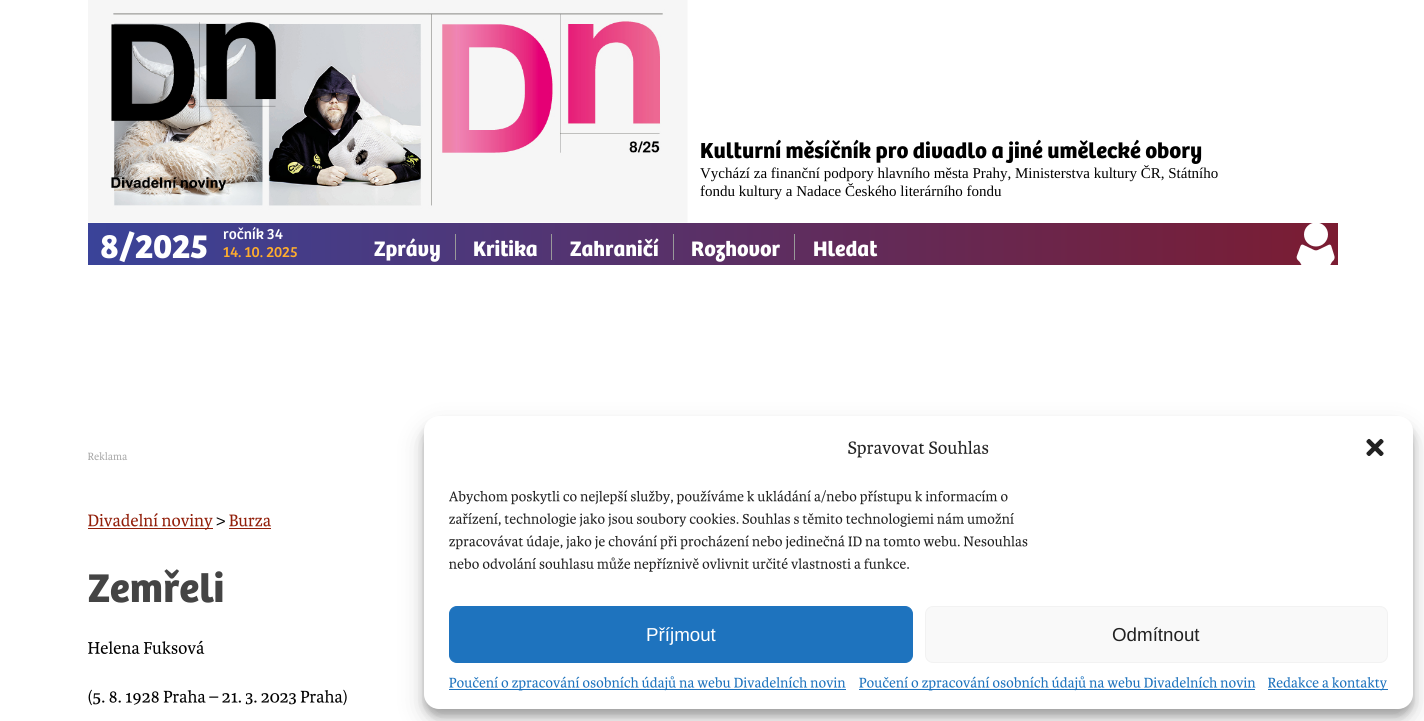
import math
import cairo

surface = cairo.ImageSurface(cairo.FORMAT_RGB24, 1424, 721)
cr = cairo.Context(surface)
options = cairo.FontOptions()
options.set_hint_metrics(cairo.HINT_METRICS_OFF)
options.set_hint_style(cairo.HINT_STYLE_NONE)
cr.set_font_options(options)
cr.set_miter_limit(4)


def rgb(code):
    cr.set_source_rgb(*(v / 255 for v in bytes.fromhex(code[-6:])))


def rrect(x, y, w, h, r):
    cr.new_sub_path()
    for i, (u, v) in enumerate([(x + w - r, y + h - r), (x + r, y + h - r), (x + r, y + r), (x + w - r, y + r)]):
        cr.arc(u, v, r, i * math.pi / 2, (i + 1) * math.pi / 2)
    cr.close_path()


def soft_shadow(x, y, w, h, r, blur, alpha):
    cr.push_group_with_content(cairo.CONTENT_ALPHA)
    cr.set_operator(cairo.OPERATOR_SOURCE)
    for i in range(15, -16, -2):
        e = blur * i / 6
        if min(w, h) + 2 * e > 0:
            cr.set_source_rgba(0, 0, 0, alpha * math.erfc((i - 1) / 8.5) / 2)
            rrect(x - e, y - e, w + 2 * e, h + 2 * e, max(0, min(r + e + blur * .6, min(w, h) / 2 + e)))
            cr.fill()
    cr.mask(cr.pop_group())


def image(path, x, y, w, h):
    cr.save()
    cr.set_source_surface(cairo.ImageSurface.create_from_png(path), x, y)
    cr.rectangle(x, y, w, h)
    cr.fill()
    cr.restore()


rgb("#ffffff")
cr.paint()
image("img/1.png", 88, 0, 600, 223)
image("img/2.png", 111, 22, 165, 169)
gradient = cairo.LinearGradient(88, 244, 1338, 244)
gradient.add_color_stop_rgba(0, 0.227, 0.263, 0.6, 1)
gradient.add_color_stop_rgba(1, 0.482, 0.11, 0.196, 1)
cr.set_source(gradient)
cr.rectangle(88, 223, 1250, 42)
cr.fill()
for x, y, w, h, color in [
    (455, 234, 1, 26, "#999999"),
    (551, 234, 1, 26, "#999999"),
    (673, 234, 1, 26, "#999999"),
    (794, 234, 1, 26, "#999999"),
]:
    rgb(color)
    cr.rectangle(x, y, w, h)
    cr.fill()
image("img/3.png", 1296, 223, 39, 42)
image("img/4.png", 88, 452, 40, 9)
rgb("#921f0a")
cr.rectangle(88, 528, 125, 1)
cr.fill()
image("img/5.png", 88, 513, 125, 17)
image("img/6.png", 216, 517, 9, 9)
image("img/7.png", 229, 514, 42, 13)
cr.rectangle(229, 528, 42, 1)
cr.fill()
image("img/8.png", 88, 640, 117, 14)
image("img/9.png", 88, 689, 259, 17)
rgb("#000000")
soft_shadow(424, 424, 989, 292, 15, 4, 0.23)
soft_shadow(424, 429, 989, 292, 15, 12.5, 0.19)
rgb("#ffffff")
rrect(424, 416, 989, 293, 15)
cr.fill()
image("img/10.png", 848, 440, 141, 18)
image("img/11.png", 1366, 438, 18, 18)
image("img/12.png", 449, 490, 559, 15)
image("img/13.png", 449, 513, 565, 14)
image("img/14.png", 449, 535, 579, 15)
image("img/15.png", 449, 557, 460, 15)
rgb("#1e73be")
rrect(449.5, 606.5, 463, 56, 7.5)
cr.fill_preserve()
cr.set_line_width(1)
cr.stroke()
rgb("#f9f9f9")
rrect(925.5, 606.5, 462, 56, 7.5)
cr.fill_preserve()
rgb("#f2f2f2")
cr.stroke()
rgb("#1e73be")
cr.rectangle(449, 689, 397, 1)
cr.fill()
image("img/16.png", 449, 676, 397, 15)
cr.rectangle(859, 689, 396, 1)
cr.fill()
image("img/17.png", 859, 676, 397, 15)
cr.rectangle(1268, 689, 120, 1)
cr.fill()
image("img/18.png", 1268, 677, 119, 14)
cr.select_font_face("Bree", cairo.FONT_SLANT_NORMAL, cairo.FONT_WEIGHT_BOLD)
cr.set_font_size(22.5)
rgb("#000000")
cr.move_to(700, 158)
cr.show_text("Kulturní měsíčník pro divadlo a jiné umělecké obory")
cr.select_font_face("Liberation Serif")
cr.set_font_size(15)
cr.move_to(700, 178)
cr.show_text("Vychází za finanční podpory hlavního města Prahy, Ministerstva kultury ČR, Státního")
cr.move_to(700, 196)
cr.show_text("fondu kultury a Nadace Českého literárního fondu")
cr.select_font_face("Bree", cairo.FONT_SLANT_NORMAL, cairo.FONT_WEIGHT_BOLD)
cr.set_font_size(35)
rgb("#ffffff")
cr.move_to(100, 258)
cr.show_text("8/2025")
cr.select_font_face("Bree")
cr.set_font_size(15.25)
cr.move_to(223, 239)
cr.show_text("ročník 34")
rgb("#ffad2d")
cr.move_to(223, 257)
cr.show_text("14. 10. 2025")
cr.select_font_face("Bree", cairo.FONT_SLANT_NORMAL, cairo.FONT_WEIGHT_BOLD)
cr.set_font_size(21.75)
rgb("#ffffff")
for x, y, s in [
    (374, 256, "Zprávy"),
    (473, 256, "Kritika"),
    (570, 256, "Zahraničí"),
    (691, 256, "Rozhovor"),
    (813, 256, "Hledat"),
]:
    cr.move_to(x, y)
    cr.show_text(s)
cr.set_font_size(41.5)
rgb("#444444")
cr.move_to(88, 602)
cr.show_text("Zemřeli")
cr.select_font_face("Liberation Sans")
cr.set_font_size(18.75)
rgb("#ffffff")
cr.move_to(646, 641)
cr.show_text("Příjmout")
rgb("#222222")
cr.move_to(1112, 641)
cr.show_text("Odmítnout")
surface.write_to_png("page.png")
